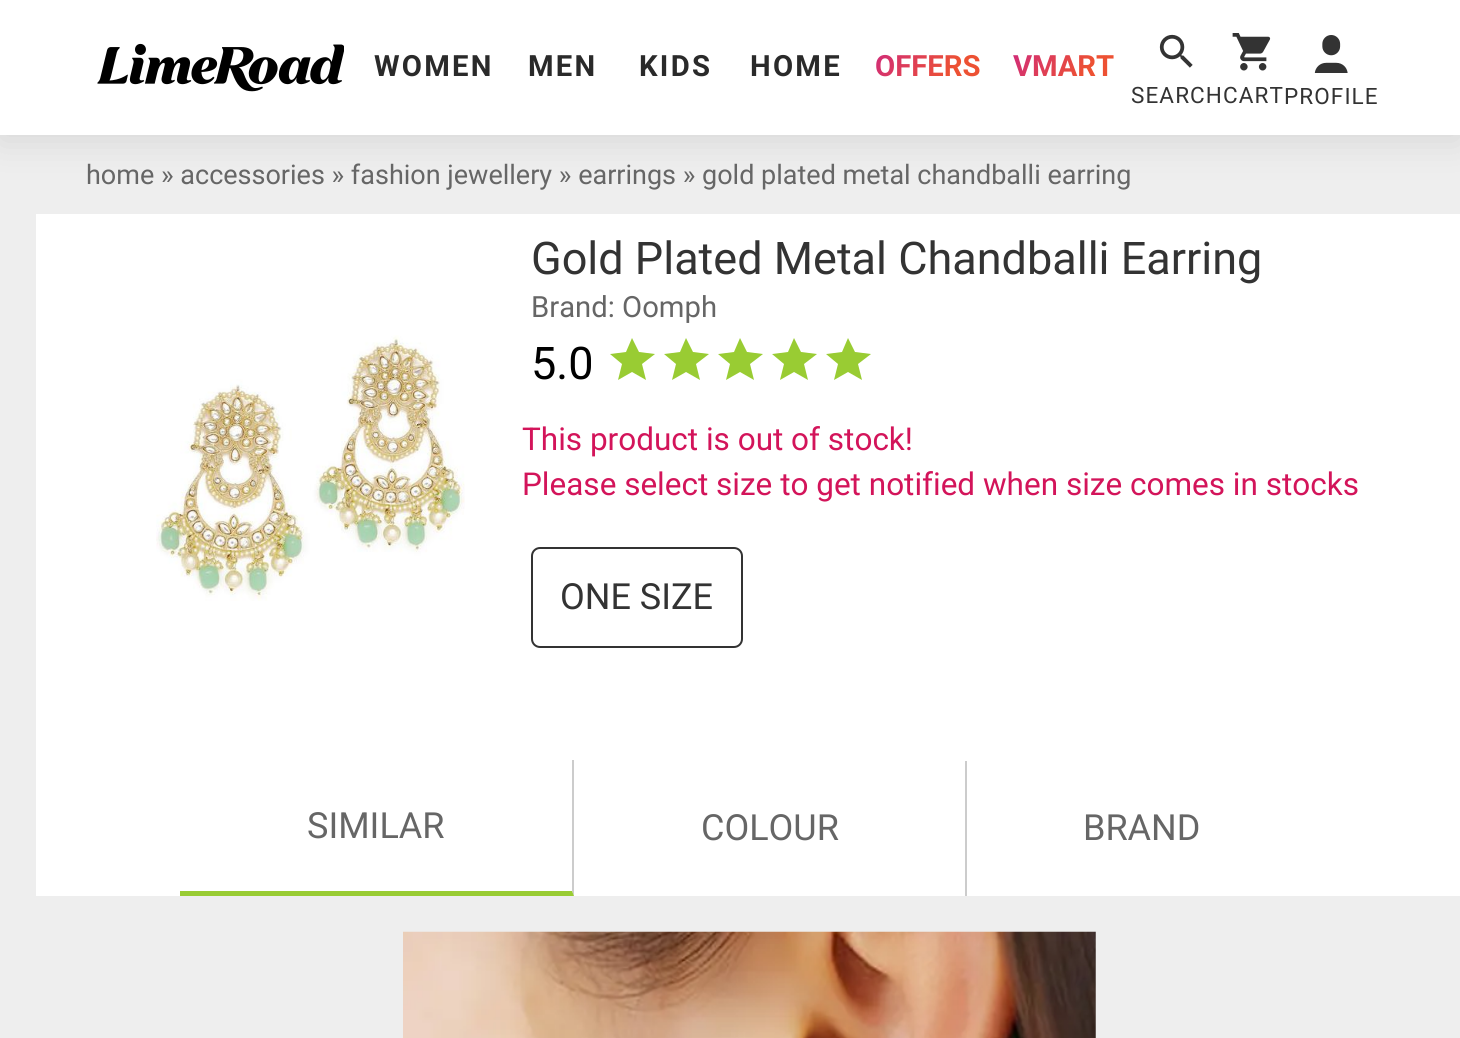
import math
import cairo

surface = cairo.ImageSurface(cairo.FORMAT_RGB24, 1460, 1038)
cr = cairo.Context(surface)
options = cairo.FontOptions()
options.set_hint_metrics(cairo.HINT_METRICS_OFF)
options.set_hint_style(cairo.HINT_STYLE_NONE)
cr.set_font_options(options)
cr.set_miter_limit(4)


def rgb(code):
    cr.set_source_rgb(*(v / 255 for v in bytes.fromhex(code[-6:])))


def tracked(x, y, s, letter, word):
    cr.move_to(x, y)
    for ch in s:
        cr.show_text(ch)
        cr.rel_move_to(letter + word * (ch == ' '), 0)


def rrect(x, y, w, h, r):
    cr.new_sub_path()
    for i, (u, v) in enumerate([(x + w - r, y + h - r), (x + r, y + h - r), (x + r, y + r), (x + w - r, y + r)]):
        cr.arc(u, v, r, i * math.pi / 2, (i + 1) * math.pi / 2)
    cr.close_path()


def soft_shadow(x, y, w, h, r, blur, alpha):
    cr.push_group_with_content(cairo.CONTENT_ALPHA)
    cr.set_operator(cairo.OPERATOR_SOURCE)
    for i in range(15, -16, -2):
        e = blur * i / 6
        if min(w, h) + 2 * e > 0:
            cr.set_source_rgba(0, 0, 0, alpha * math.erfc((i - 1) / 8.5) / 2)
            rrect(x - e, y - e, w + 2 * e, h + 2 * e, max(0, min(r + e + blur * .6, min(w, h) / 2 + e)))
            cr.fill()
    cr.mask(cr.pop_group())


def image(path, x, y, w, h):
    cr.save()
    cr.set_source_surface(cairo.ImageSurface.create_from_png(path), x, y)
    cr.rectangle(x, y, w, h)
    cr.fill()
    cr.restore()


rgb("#eeeeee")
cr.paint()
rgb("#555555")
soft_shadow(0, 5, 1460, 135, 0, 18, 0.16)
rgb("#ffffff")
cr.rectangle(0, 0, 1460, 135)
cr.fill()
image("img/1.png", 97, 43, 247, 49)
image("img/2.png", 1232, 33, 39, 38)
image("img/3.png", 1159, 34, 34, 34)
image("img/4.png", 1314, 35, 34, 38)
cr.rectangle(36, 214, 1424, 682)
cr.fill()
image("img/5.png", 156, 335, 309, 266)
rgb("#99cc33")
cr.new_path()
cr.move_to(632, 372)
cr.line_to(646, 380)
cr.line_to(642, 364)
cr.line_to(655, 354)
cr.line_to(639, 352)
cr.line_to(632, 338)
cr.line_to(626, 352)
cr.line_to(610, 354)
cr.line_to(622, 364)
cr.line_to(618, 380)
cr.close_path()
cr.fill()
cr.new_path()
cr.move_to(686, 372)
cr.line_to(700, 380)
cr.line_to(696, 364)
cr.line_to(709, 354)
cr.line_to(693, 352)
cr.line_to(686, 338)
cr.line_to(680, 352)
cr.line_to(664, 354)
cr.line_to(676, 364)
cr.line_to(672, 380)
cr.close_path()
cr.fill()
cr.new_path()
cr.move_to(740, 372)
cr.line_to(754, 380)
cr.line_to(750, 364)
cr.line_to(763, 354)
cr.line_to(747, 352)
cr.line_to(740, 338)
cr.line_to(734, 352)
cr.line_to(718, 354)
cr.line_to(730, 364)
cr.line_to(726, 380)
cr.close_path()
cr.fill()
cr.new_path()
cr.move_to(794, 372)
cr.line_to(808, 380)
cr.line_to(804, 364)
cr.line_to(817, 354)
cr.line_to(801, 352)
cr.line_to(794, 338)
cr.line_to(788, 352)
cr.line_to(772, 354)
cr.line_to(784, 364)
cr.line_to(780, 380)
cr.close_path()
cr.fill()
cr.new_path()
cr.move_to(848, 372)
cr.line_to(862, 380)
cr.line_to(858, 364)
cr.line_to(871, 354)
cr.line_to(855, 352)
cr.line_to(848, 338)
cr.line_to(842, 352)
cr.line_to(826, 354)
cr.line_to(838, 364)
cr.line_to(834, 380)
cr.close_path()
cr.fill()
rrect(532, 548, 210, 99, 8)
rgb("#333333")
cr.stroke()
rgb("#cccccc")
cr.new_path()
cr.move_to(574, 760)
cr.line_to(574, 896)
cr.line_to(572, 891)
cr.line_to(572, 760)
cr.close_path()
cr.fill()
rgb("#99cc33")
cr.new_path()
cr.move_to(574, 896)
cr.line_to(180, 896)
cr.line_to(180, 891)
cr.line_to(572, 891)
cr.close_path()
cr.fill()
rgb("#cccccc")
cr.rectangle(965, 761, 2, 135)
cr.fill()
image("img/6.png", 403, 931, 693, 107)
cr.select_font_face("Roboto", cairo.FONT_SLANT_NORMAL, cairo.FONT_WEIGHT_BOLD)
cr.set_font_size(29.25)
rgb("#2a2a2a")
for x, y, s in [
    (374, 76, "WOMEN"),
    (528, 76, "MEN"),
    (639, 76, "KIDS"),
    (750, 76, "HOME"),
]:
    tracked(x, y, s, 2.25, 0)
gradient = cairo.LinearGradient(879, 34, 973, 95)
gradient.add_color_stop_rgba(0, 0.808, 0.161, 0.494, 1)
gradient.add_color_stop_rgba(0.73, 0.929, 0.318, 0.2, 1)
cr.set_source(gradient)
cr.move_to(875, 76)
cr.show_text("OFFERS")
gradient = cairo.LinearGradient(1016, 35, 1107, 94)
gradient.add_color_stop_rgba(0, 0.808, 0.161, 0.494, 1)
gradient.add_color_stop_rgba(0.73, 0.929, 0.318, 0.2, 1)
cr.set_source(gradient)
cr.move_to(1013, 76)
cr.show_text("VMART")
cr.select_font_face("Roboto")
cr.set_font_size(22.5)
rgb("#333333")
tracked(1131, 103, "SEARCHCART", 1.1, 0)
tracked(1284, 104, "PROFILE", 1.1, 0)
cr.set_font_size(27)
rgb("#666666")
cr.move_to(86, 184)
cr.show_text("home » accessories » fashion jewellery » earrings » gold plated metal chandballi earring")
cr.set_font_size(45)
rgb("#333333")
cr.move_to(531, 274)
cr.show_text("Gold Plated Metal Chandballi Earring")
cr.set_font_size(29.25)
rgb("#666666")
cr.move_to(531, 317)
cr.show_text("Brand: Oomph")
cr.set_font_size(45)
rgb("#000000")
cr.move_to(531, 379)
cr.show_text("5.0")
cr.set_font_size(31.5)
rgb("#d3145a")
cr.move_to(522, 450)
cr.show_text("This product is out of stock!")
cr.move_to(522, 495)
cr.show_text("Please select size to get notified when size comes in stocks")
cr.set_font_size(36)
rgb("#333333")
cr.move_to(560, 609)
cr.show_text("ONE SIZE")
rgb("#666666")
for x, y, s in [
    (307, 838, "SIMILAR"),
    (701, 840, "COLOUR"),
    (1083, 840, "BRAND"),
]:
    cr.move_to(x, y)
    cr.show_text(s)
surface.write_to_png("page.png")
